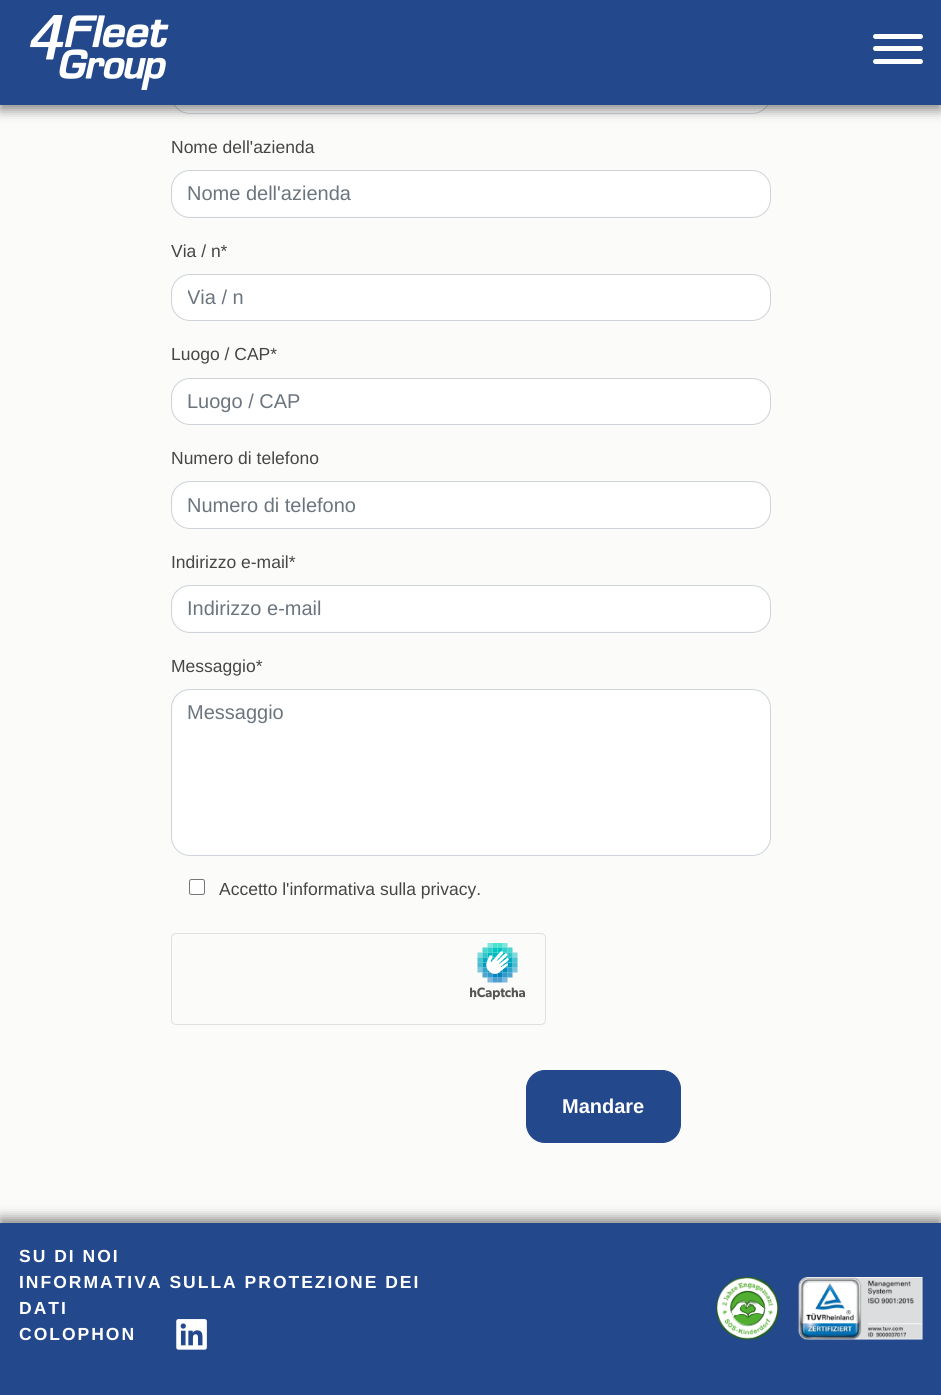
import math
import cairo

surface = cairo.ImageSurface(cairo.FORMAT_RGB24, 941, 1395)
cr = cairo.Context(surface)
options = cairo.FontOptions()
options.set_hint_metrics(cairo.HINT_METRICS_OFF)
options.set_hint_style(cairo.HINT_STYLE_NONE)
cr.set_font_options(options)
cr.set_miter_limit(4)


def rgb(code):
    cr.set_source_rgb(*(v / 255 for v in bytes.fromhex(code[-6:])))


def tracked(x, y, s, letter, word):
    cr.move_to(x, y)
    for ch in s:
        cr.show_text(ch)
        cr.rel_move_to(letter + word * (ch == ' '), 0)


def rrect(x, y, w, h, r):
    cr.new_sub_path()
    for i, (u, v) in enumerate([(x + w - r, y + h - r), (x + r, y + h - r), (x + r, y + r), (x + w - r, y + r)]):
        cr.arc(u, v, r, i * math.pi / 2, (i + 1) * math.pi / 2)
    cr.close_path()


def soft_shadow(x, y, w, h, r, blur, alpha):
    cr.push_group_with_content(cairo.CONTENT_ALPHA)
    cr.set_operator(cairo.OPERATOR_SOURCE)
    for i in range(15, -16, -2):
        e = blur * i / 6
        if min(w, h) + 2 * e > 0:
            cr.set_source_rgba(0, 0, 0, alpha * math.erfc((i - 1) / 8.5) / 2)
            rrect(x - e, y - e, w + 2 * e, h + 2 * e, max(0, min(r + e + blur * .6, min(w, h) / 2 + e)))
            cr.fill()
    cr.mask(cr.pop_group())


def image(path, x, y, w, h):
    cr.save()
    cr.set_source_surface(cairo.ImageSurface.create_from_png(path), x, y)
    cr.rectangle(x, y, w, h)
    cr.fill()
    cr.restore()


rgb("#fbfbfa")
cr.paint()
rgb("#ffffff")
rrect(173, 68, 597, 45, 18)
cr.fill()
rrect(171.5, 66.5, 599, 47, 18.5)
rgb("#ced4da")
cr.set_line_width(1)
cr.stroke()
rgb("#000000")
soft_shadow(0, 5, 941, 105, 0, 6, 0.46)
rgb("#23488b")
cr.rectangle(0, 0, 941, 105)
cr.fill()
image("img/1.png", 30, 15, 139, 75)
rgb("#ffffff")
rrect(873, 46, 50, 5, 2.5)
cr.fill()
rrect(873, 34, 50, 5, 2.5)
cr.fill()
rrect(873, 59, 50, 5, 2.5)
cr.fill()
rrect(173, 171, 597, 45, 18)
cr.fill()
rrect(171.5, 170.5, 599, 47, 18.5)
rgb("#ced4da")
cr.stroke()
rgb("#ffffff")
rrect(173, 275, 597, 45, 18)
cr.fill()
rrect(171.5, 274.5, 599, 46, 18.5)
rgb("#ced4da")
cr.stroke()
rgb("#ffffff")
rrect(173, 379, 597, 45, 18)
cr.fill()
rrect(171.5, 378.5, 599, 46, 18.5)
rgb("#ced4da")
cr.stroke()
rgb("#ffffff")
rrect(173, 483, 597, 45, 18)
cr.fill()
rrect(171.5, 481.5, 599, 47, 18.5)
rgb("#ced4da")
cr.stroke()
rgb("#ffffff")
rrect(173, 586, 597, 45, 18)
cr.fill()
rrect(171.5, 585.5, 599, 47, 18.5)
rgb("#ced4da")
cr.stroke()
rgb("#ffffff")
rrect(173, 690, 597, 165, 18)
cr.fill()
rrect(171.5, 689.5, 599, 166, 18.5)
rgb("#ced4da")
cr.stroke()
rgb("#ffffff")
rrect(189.5, 879.5, 15, 15, 2)
cr.fill_preserve()
rgb("#767676")
cr.stroke()
image("img/2.png", 470, 943, 55, 57)
rrect(171.5, 933.5, 374, 91, 4.5)
rgb("#e0e0e0")
cr.stroke()
rgb("#23488b")
rrect(526.5, 1070.5, 154, 72, 18.5)
cr.fill_preserve()
cr.stroke()
rgb("#000000")
soft_shadow(0, 1218, 941, 172, 0, 6, 0.46)
rgb("#23488b")
cr.rectangle(0, 1223, 941, 172)
cr.fill()
image("img/3.png", 176, 1319, 31, 31)
image("img/4.png", 716, 1277, 63, 63)
image("img/5.png", 798, 1277, 125, 63)
cr.select_font_face("Liberation Sans")
cr.set_font_size(17.5)
rgb("#464645")
cr.move_to(171, 153)
cr.show_text("Nome dell'azienda")
cr.set_font_size(20)
rgb("#6c757d")
cr.move_to(187, 200)
cr.show_text("Nome dell'azienda")
cr.set_font_size(17.5)
rgb("#464645")
cr.move_to(171, 257)
cr.show_text("Via / n*")
cr.save()
cr.rectangle(188, 286, 567, 23)
cr.clip()
cr.set_font_size(20)
rgb("#6c757d")
cr.move_to(187, 304)
cr.show_text("Via / n")
cr.restore()
cr.move_to(171, 360)
cr.show_text("Luogo / CAP*")
cr.set_font_size(20)
rgb("#6c757d")
cr.move_to(187, 408)
cr.show_text("Luogo / CAP")
cr.set_font_size(17.5)
rgb("#464645")
cr.move_to(171, 464)
cr.show_text("Numero di telefono")
cr.set_font_size(20)
rgb("#6c757d")
cr.move_to(187, 512)
cr.show_text("Numero di telefono")
cr.set_font_size(17.5)
rgb("#464645")
cr.move_to(171, 568)
cr.show_text("Indirizzo e-mail*")
cr.set_font_size(20)
rgb("#6c757d")
cr.move_to(187, 615)
cr.show_text("Indirizzo e-mail")
cr.set_font_size(17.5)
rgb("#464645")
cr.move_to(171, 672)
cr.show_text("Messaggio*")
cr.set_font_size(20)
rgb("#6c757d")
cr.move_to(187, 719)
cr.show_text("Messaggio")
cr.set_font_size(17.5)
rgb("#464645")
cr.move_to(219, 895)
cr.show_text("Accetto l'informativa sulla privacy.")
cr.select_font_face("Liberation Sans", cairo.FONT_SLANT_NORMAL, cairo.FONT_WEIGHT_BOLD)
cr.set_font_size(20)
rgb("#ffffff")
cr.move_to(562, 1113)
cr.show_text("Mandare")
cr.set_font_size(17.5)
for x, y, s in [
    (19, 1262, "SU DI NOI"),
    (19, 1288, "INFORMATIVA SULLA PROTEZIONE DEI"),
    (19, 1314, "DATI"),
    (19, 1340, "COLOPHON"),
]:
    tracked(x, y, s, 2, 0)
surface.write_to_png("page.png")
